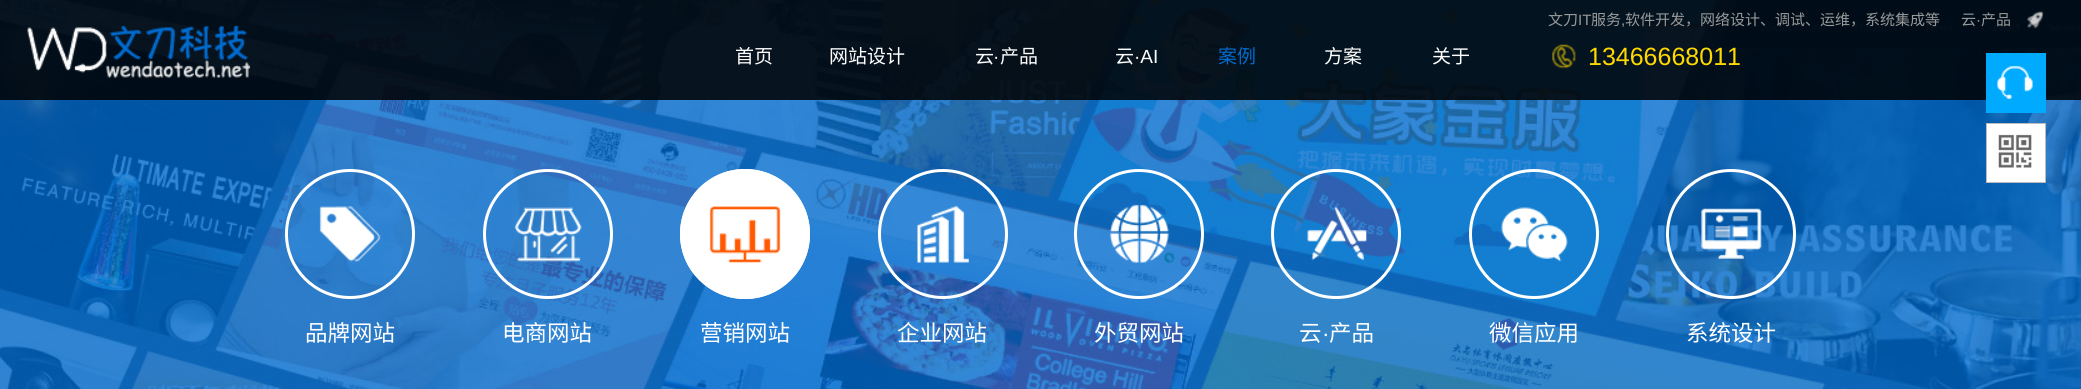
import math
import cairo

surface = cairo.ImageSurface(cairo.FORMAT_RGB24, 2081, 389)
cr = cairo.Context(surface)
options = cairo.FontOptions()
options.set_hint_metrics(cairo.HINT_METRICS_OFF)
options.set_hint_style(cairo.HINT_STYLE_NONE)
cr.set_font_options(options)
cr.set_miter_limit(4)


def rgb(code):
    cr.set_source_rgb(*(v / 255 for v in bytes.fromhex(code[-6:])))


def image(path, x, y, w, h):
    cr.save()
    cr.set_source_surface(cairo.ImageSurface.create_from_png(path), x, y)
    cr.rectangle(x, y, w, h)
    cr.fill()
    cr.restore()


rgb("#ffffff")
cr.paint()
image("img/6.png", 0, 0, 2081, 389)
cr.set_source_rgba(0, 0, 0, 0.85)
cr.rectangle(0, 0, 2081, 100)
cr.fill()
image("img/1.png", 27, 25, 223, 53)
image("img/2.png", 2027, 11, 17, 18)
image("img/3.png", 1552, 44, 24, 25)
rgb("#00aaff")
cr.rectangle(1986, 53, 60, 60)
cr.fill()
image("img/4.png", 1997, 66, 36, 33)
rgb("#ffffff")
cr.rectangle(1987, 124, 58, 58)
cr.fill()
image("img/5.png", 1998, 134, 34, 34)
cr.rectangle(1986.5, 123.5, 59, 59)
rgb("#bcbcbc")
cr.set_line_width(1)
cr.stroke()
image("img/7.png", 319, 206, 62, 56)
cr.arc(350, 234, 63.5, 0, 2 * math.pi)
rgb("#ffffff")
cr.set_line_width(3)
cr.stroke()
image("img/8.png", 514, 207, 68, 55)
cr.arc(548, 234, 63.5, 0, 2 * math.pi)
cr.stroke()
cr.arc(745, 234, 65, 0, 2 * math.pi)
cr.fill()
image("img/9.png", 709, 206, 72, 57)
cr.arc(745, 234, 63.5, 0, 2 * math.pi)
cr.stroke()
image("img/10.png", 917, 206, 52, 57)
cr.arc(943, 234, 63.5, 0, 2 * math.pi)
cr.stroke()
image("img/11.png", 1109, 204, 60, 59)
cr.arc(1139, 234, 63.5, 0, 2 * math.pi)
cr.stroke()
image("img/12.png", 1307, 207, 60, 54)
cr.arc(1336, 234, 63.5, 0, 2 * math.pi)
cr.stroke()
image("img/13.png", 1501, 207, 67, 55)
cr.arc(1534, 234, 63.5, 0, 2 * math.pi)
cr.stroke()
image("img/14.png", 1701, 208, 61, 51)
cr.arc(1731, 234, 63.5, 0, 2 * math.pi)
cr.stroke()
cr.select_font_face("Noto Sans CJK SC")
cr.set_font_size(19)
for x, y, s in [
    (735, 63, "首页"),
    (829, 63, "网站设计"),
    (975, 63, "云"),
]:
    cr.move_to(x, y)
    cr.show_text(s)
cr.select_font_face("Liberation Sans")
cr.move_to(993, 63)
cr.show_text("·")
cr.select_font_face("Noto Sans CJK SC")
cr.move_to(1000, 63)
cr.show_text("产品")
cr.move_to(1115, 63)
cr.show_text("云")
cr.select_font_face("Liberation Sans")
cr.move_to(1134, 63)
cr.show_text("·AI")
cr.select_font_face("Noto Sans CJK SC")
rgb("#006acd")
cr.move_to(1218, 63)
cr.show_text("案例")
rgb("#ffffff")
cr.move_to(1324, 63)
cr.show_text("方案")
cr.move_to(1432, 63)
cr.show_text("关于")
cr.set_font_size(15)
rgb("#999999")
cr.move_to(1548, 25)
cr.show_text("文刀")
cr.select_font_face("Liberation Sans")
cr.move_to(1578, 25)
cr.show_text("IT")
cr.select_font_face("Noto Sans CJK SC")
for x, y, s in [
    (1591, 25, "服务"),
    (1625, 25, "软件开发，网络设计、调试、运维，系统集成等"),
    (1961, 25, "云"),
]:
    cr.move_to(x, y)
    cr.show_text(s)
cr.select_font_face("Liberation Sans")
cr.move_to(1976, 25)
cr.show_text("·")
cr.select_font_face("Noto Sans CJK SC")
cr.move_to(1981, 25)
cr.show_text("产品")
cr.select_font_face("Liberation Sans")
cr.move_to(1621, 25)
cr.show_text(",")
cr.set_font_size(25)
rgb("#ffd800")
cr.move_to(1588, 65)
cr.show_text("13466668011")
cr.select_font_face("Noto Sans CJK SC")
cr.set_font_size(22.5)
rgb("#ffffff")
for x, y, s in [
    (305, 341, "品牌网站"),
    (502, 341, "电商网站"),
    (700, 341, "营销网站"),
    (897, 341, "企业网站"),
    (1094, 341, "外贸网站"),
    (1299, 341, "云"),
]:
    cr.move_to(x, y)
    cr.show_text(s)
cr.select_font_face("Liberation Sans")
cr.move_to(1322, 341)
cr.show_text("·")
cr.select_font_face("Noto Sans CJK SC")
for x, y, s in [
    (1329, 341, "产品"),
    (1489, 341, "微信应用"),
    (1686, 341, "系统设计"),
]:
    cr.move_to(x, y)
    cr.show_text(s)
surface.write_to_png("page.png")
